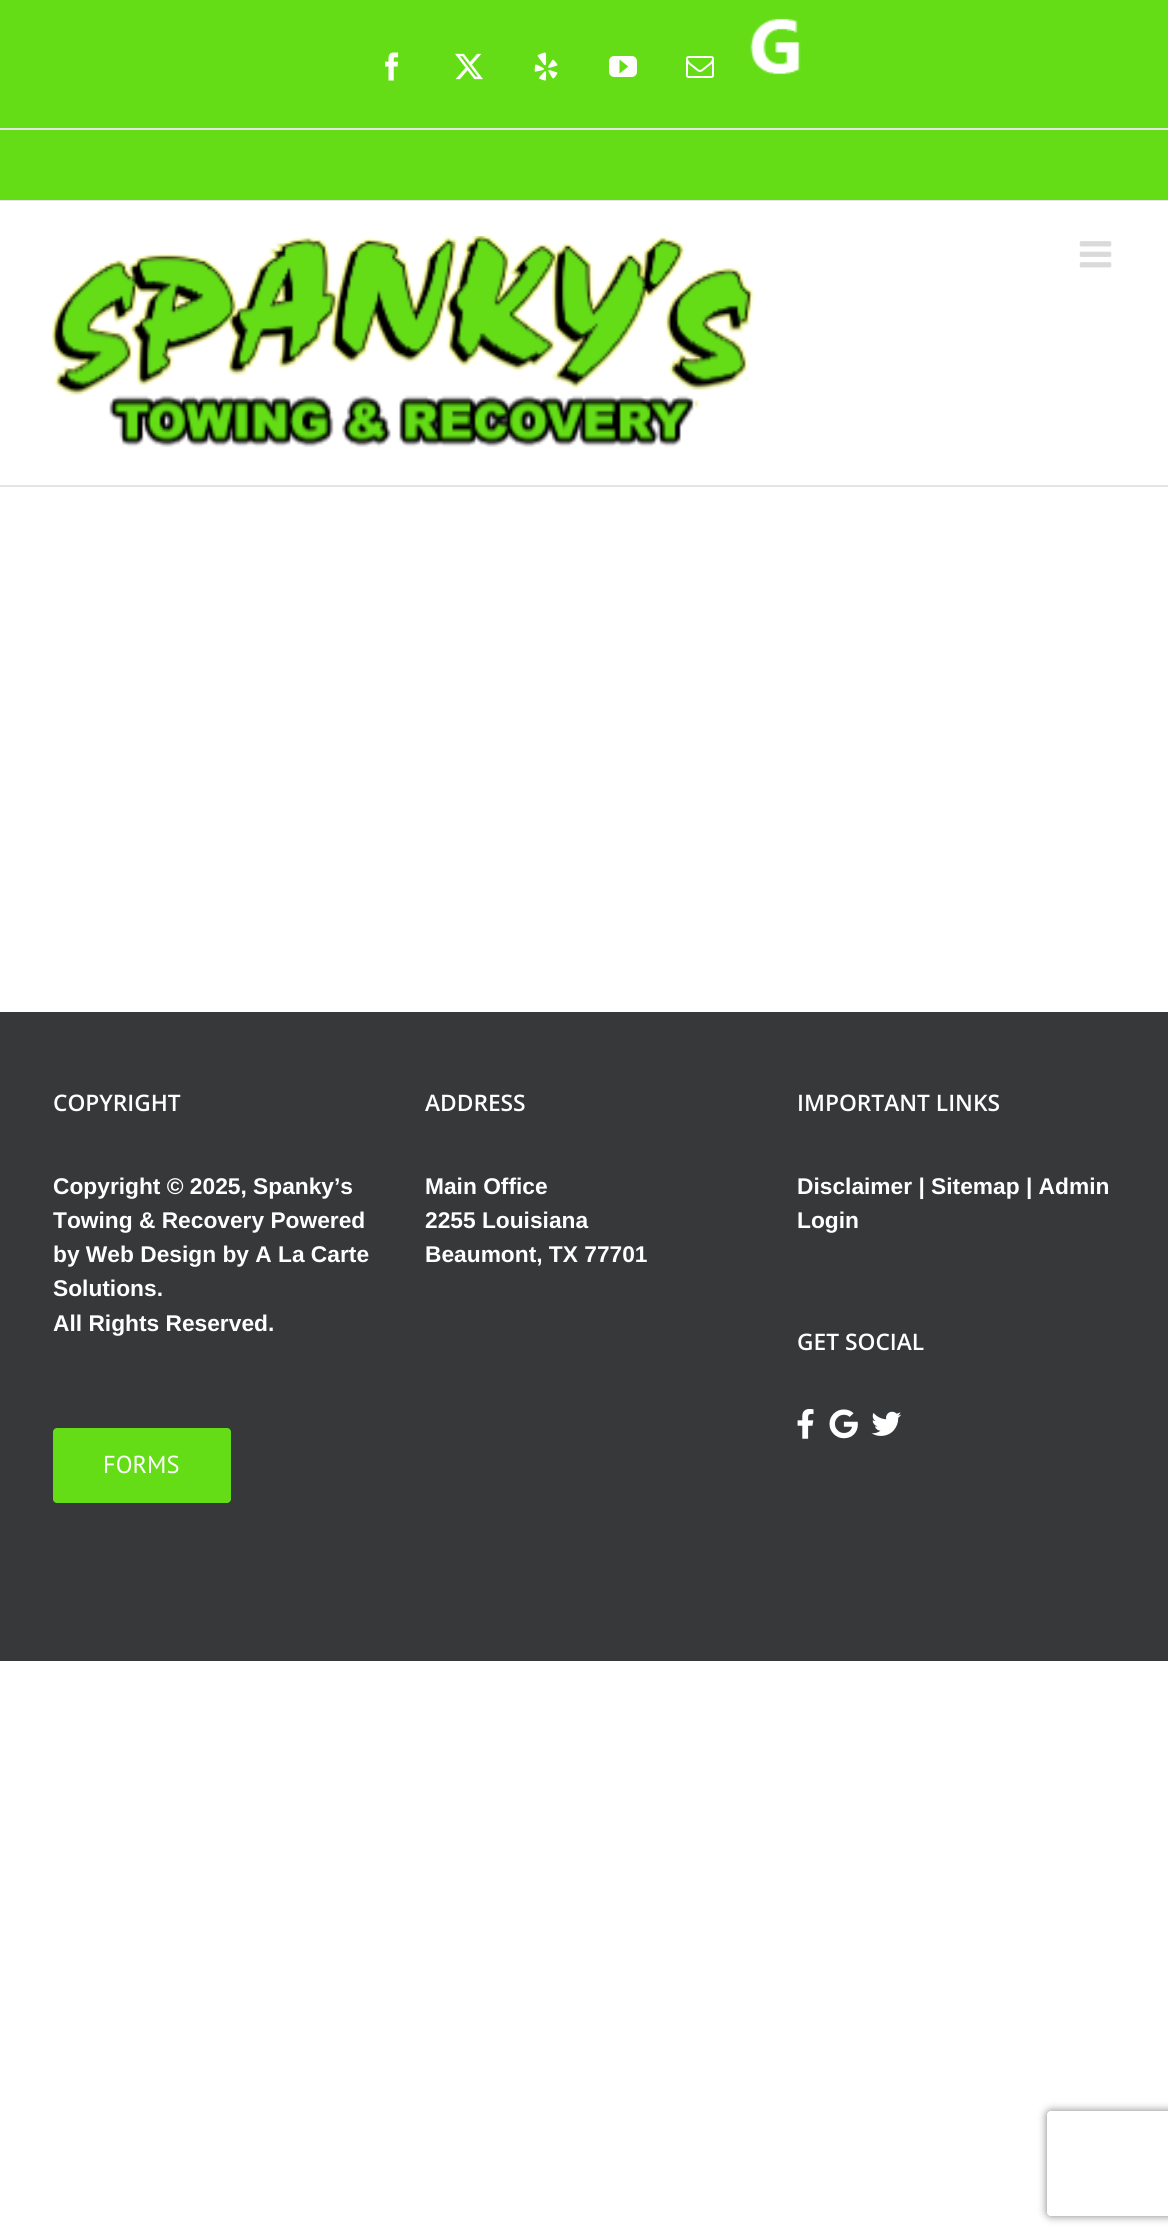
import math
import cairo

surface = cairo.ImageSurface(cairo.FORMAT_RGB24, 1168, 2239)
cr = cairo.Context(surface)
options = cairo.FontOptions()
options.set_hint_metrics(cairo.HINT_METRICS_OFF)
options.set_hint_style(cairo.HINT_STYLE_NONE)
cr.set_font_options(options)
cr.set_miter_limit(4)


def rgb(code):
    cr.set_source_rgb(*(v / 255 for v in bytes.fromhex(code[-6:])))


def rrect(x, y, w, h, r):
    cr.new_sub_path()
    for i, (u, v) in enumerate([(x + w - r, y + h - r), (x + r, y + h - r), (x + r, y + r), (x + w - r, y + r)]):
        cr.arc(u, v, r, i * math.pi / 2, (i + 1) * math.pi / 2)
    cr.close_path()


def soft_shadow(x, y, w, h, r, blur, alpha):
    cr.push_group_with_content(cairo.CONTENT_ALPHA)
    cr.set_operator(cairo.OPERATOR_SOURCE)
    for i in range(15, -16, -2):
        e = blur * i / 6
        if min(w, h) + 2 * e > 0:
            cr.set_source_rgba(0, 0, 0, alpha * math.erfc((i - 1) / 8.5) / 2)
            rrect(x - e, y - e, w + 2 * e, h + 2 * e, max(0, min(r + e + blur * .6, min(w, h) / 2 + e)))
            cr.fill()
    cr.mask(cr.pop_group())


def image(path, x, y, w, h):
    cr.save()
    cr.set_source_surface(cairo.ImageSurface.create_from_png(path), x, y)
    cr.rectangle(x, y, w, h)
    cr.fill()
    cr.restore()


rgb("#ffffff")
cr.paint()
for x, y, w, h, color in [
    (0, 0, 1168, 200, "#64dd17"),
    (0, 200, 1168, 1, "#e5e5e5"),
    (0, 128, 1168, 2, "#e5e5e5"),
]:
    rgb(color)
    cr.rectangle(x, y, w, h)
    cr.fill()
image("img/1.png", 385, 52, 14, 29)
image("img/2.png", 455, 53, 28, 27)
image("img/3.png", 534, 52, 24, 29)
image("img/4.png", 609, 56, 28, 21)
image("img/5.png", 686, 56, 28, 22)
image("img/6.png", 750, 18, 51, 57)
cr.rectangle(0, 485, 1168, 2)
cr.fill()
image("img/7.png", 52, 236, 701, 211)
image("img/8.png", 1079, 241, 33, 27)
rgb("#363839")
cr.rectangle(0, 1012, 1168, 649)
cr.fill()
rgb("#64dd17")
rrect(53, 1428, 178, 75, 4)
cr.fill()
image("img/9.png", 797, 1409, 17, 30)
image("img/10.png", 829, 1409, 29, 30)
image("img/11.png", 871, 1411, 31, 25)
cr.save()
cr.set_fill_rule(cairo.FILL_RULE_EVEN_ODD)
cr.new_path()
cr.move_to(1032, 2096)
cr.line_to(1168, 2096)
cr.line_to(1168, 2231)
cr.line_to(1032, 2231)
cr.close_path()
cr.move_to(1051, 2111)
cr.line_to(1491, 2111)
cr.curve_to(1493, 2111, 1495, 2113, 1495, 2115)
cr.line_to(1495, 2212)
cr.curve_to(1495, 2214, 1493, 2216, 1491, 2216)
cr.line_to(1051, 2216)
cr.curve_to(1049, 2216, 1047, 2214, 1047, 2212)
cr.line_to(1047, 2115)
cr.curve_to(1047, 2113, 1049, 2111, 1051, 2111)
cr.close_path()
cr.clip()
rgb("#808080")
soft_shadow(1047, 2111, 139, 105, 4, 4.5, 1)
cr.restore()
cr.select_font_face("Open Sans SemiBold")
cr.set_font_size(22.75)
rgb("#ffffff")
cr.move_to(53, 1111)
cr.show_text("COPYRIGHT")
cr.select_font_face("Liberation Sans", cairo.FONT_SLANT_NORMAL, cairo.FONT_WEIGHT_BOLD)
for x, y, s in [
    (53, 1194, "Copyright © 2025, Spanky’s"),
    (53, 1228, "Towing & Recovery Powered"),
    (53, 1262, "by Web Design by A La Carte"),
    (53, 1296, "Solutions."),
    (53, 1331, "All Rights Reserved."),
]:
    cr.move_to(x, y)
    cr.show_text(s)
cr.select_font_face("PT Sans")
cr.set_font_size(24.5)
cr.move_to(103, 1473)
cr.show_text("FORMS")
cr.select_font_face("Open Sans SemiBold")
cr.set_font_size(22.75)
cr.move_to(425, 1111)
cr.show_text("ADDRESS")
cr.select_font_face("Liberation Sans", cairo.FONT_SLANT_NORMAL, cairo.FONT_WEIGHT_BOLD)
for x, y, s in [
    (425, 1194, "Main Office"),
    (425, 1228, "2255 Louisiana"),
    (425, 1262, "Beaumont, TX 77701"),
]:
    cr.move_to(x, y)
    cr.show_text(s)
cr.select_font_face("Open Sans SemiBold")
cr.move_to(797, 1111)
cr.show_text("IMPORTANT LINKS")
cr.select_font_face("Liberation Sans", cairo.FONT_SLANT_NORMAL, cairo.FONT_WEIGHT_BOLD)
cr.move_to(797, 1194)
cr.show_text("Disclaimer | Sitemap | Admin")
cr.move_to(797, 1228)
cr.show_text("Login")
cr.select_font_face("Open Sans SemiBold")
cr.move_to(797, 1350)
cr.show_text("GET SOCIAL")
surface.write_to_png("page.png")
